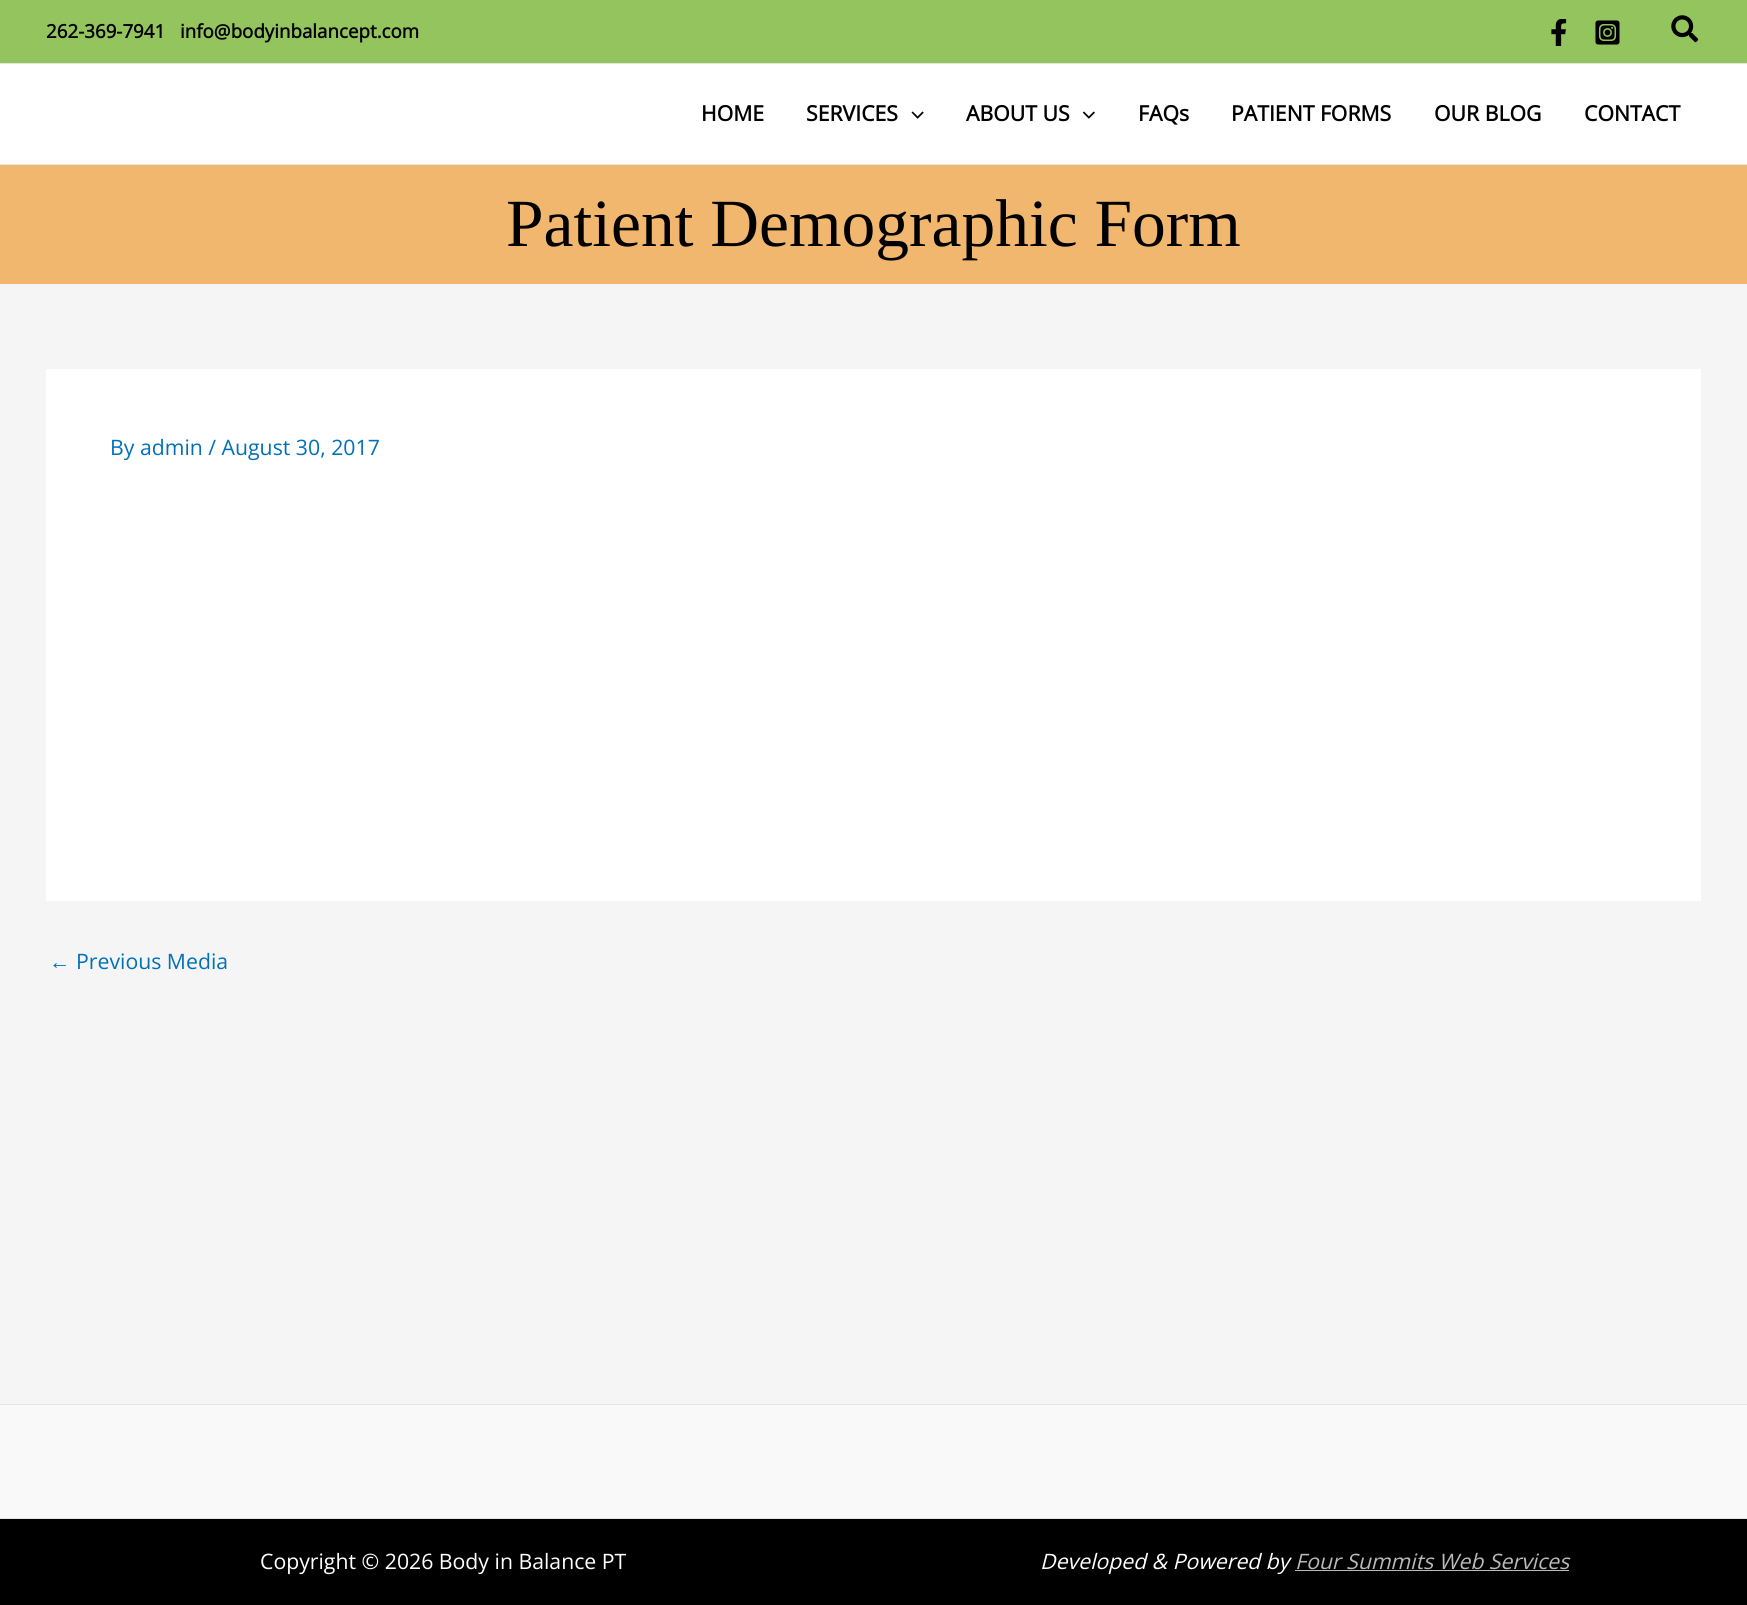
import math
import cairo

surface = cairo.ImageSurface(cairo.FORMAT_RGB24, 1747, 1605)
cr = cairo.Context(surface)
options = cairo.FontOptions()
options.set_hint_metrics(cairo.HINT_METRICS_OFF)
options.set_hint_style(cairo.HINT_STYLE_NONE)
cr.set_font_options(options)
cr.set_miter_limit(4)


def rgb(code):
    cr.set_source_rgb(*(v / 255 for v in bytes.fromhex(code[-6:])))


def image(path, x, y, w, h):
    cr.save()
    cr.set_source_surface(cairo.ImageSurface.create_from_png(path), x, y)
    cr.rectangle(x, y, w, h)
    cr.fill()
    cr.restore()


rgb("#f5f5f5")
cr.paint()
rgb("#94c45d")
cr.rectangle(0, 0, 1747, 63)
cr.fill()
rgb("#e5e5e5")
cr.rectangle(0, 63, 1747, 1)
cr.fill()
image("img/1.png", 1551, 19, 16, 27)
image("img/2.png", 1595, 20, 25, 25)
image("img/3.png", 1671, 15, 28, 28)
rgb("#ffffff")
cr.rectangle(0, 64, 1747, 100)
cr.fill()
rgb("#e5e5e5")
cr.rectangle(0, 164, 1747, 1)
cr.fill()
image("img/4.png", 911, 111, 13, 8)
image("img/5.png", 1083, 111, 12, 8)
for x, y, w, h, color in [
    (0, 165, 1747, 119, "#f2b76e"),
    (46, 369, 1655, 532, "#ffffff"),
    (0, 1405, 1747, 113, "#f9f9f9"),
    (0, 1404, 1747, 1, "#e5e5e5"),
    (0, 1519, 1747, 86, "#000000"),
    (0, 1518, 1747, 1, "#e5e5e5"),
    (1295, 1570, 274, 1, "#bbbab8"),
]:
    rgb(color)
    cr.rectangle(x, y, w, h)
    cr.fill()
cr.select_font_face("Open Sans", cairo.FONT_SLANT_NORMAL, cairo.FONT_WEIGHT_BOLD)
cr.set_font_size(18.75)
rgb("#000000")
cr.move_to(46, 38)
cr.show_text("262-369-7941")
cr.move_to(180, 38)
cr.show_text("info@bodyinbalancept.com")
cr.set_font_size(21.25)
for x, y, s in [
    (701, 121, "HOME"),
    (806, 121, "SERVICES"),
    (966, 121, "ABOUT US"),
    (1138, 121, "FAQs"),
    (1231, 121, "PATIENT FORMS"),
    (1434, 121, "OUR BLOG"),
    (1584, 121, "CONTACT"),
]:
    cr.move_to(x, y)
    cr.show_text(s)
cr.select_font_face("Liberation Serif")
cr.set_font_size(67.5)
cr.move_to(506, 246)
cr.show_text("Patient Demographic Form")
cr.select_font_face("Open Sans")
cr.set_font_size(21.25)
rgb("#0170b9")
cr.move_to(110, 455)
cr.show_text("By admin / August 30, 2017")
cr.select_font_face("Liberation Sans")
cr.move_to(49, 969)
cr.show_text("←")
cr.select_font_face("Open Sans")
cr.move_to(76, 969)
cr.show_text("Previous Media")
rgb("#ffffff")
cr.move_to(260, 1569)
cr.show_text("Copyright © 2026 Body in Balance PT")
cr.select_font_face("Open Sans", cairo.FONT_SLANT_ITALIC)
cr.move_to(1040, 1569)
cr.show_text("Developed & Powered by")
rgb("#bbbab8")
cr.move_to(1295, 1569)
cr.show_text("Four Summits Web Services")
surface.write_to_png("page.png")
